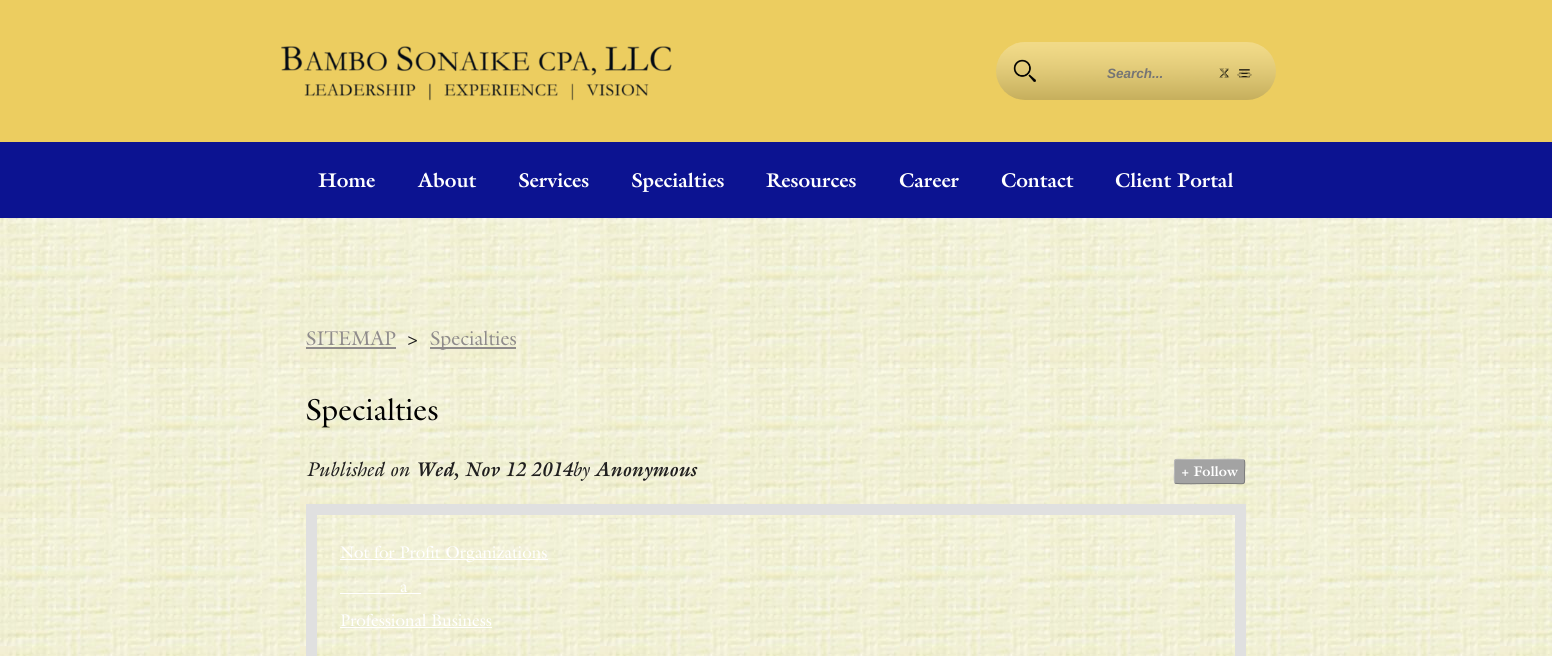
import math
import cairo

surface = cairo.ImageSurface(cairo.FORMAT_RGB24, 1552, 656)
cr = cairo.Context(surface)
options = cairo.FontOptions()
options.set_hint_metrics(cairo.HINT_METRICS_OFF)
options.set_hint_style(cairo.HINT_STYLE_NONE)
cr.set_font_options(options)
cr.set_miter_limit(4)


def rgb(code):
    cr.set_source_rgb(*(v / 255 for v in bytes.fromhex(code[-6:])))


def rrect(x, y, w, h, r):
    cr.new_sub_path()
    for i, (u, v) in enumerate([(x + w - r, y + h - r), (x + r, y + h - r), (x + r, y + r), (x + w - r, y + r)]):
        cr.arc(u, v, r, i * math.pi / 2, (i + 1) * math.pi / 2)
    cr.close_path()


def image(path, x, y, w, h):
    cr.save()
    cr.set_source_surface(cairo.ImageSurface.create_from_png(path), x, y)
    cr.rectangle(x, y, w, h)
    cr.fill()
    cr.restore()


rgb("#eccd60")
cr.paint()
image("img/1.png", 281, 46, 391, 55)
image("img/2.png", 996, 42, 280, 58)
image("img/3.png", 1013, 59, 23, 23)
image("img/4.png", 1220, 68, 9, 10)
image("img/5.png", 1239, 69, 11, 9)
rgb("#0c1391")
cr.rectangle(0, 142, 1552, 76)
cr.fill()
image("img/6.png", 0, 218, 1552, 438)
rgb("#8f8b8b")
cr.rectangle(306, 347, 90, 2)
cr.fill()
cr.rectangle(430, 347, 86, 2)
cr.fill()
rgb("#a3a3a3")
rrect(1174, 459, 71, 25, 2.5)
cr.fill()
cr.new_path()
cr.move_to(1244, 460)
cr.curve_to(1245.5, 461.5, 1244.5, 469.5, 1244.5, 471.5)
cr.curve_to(1244.5, 486.5, 1247, 483.5, 1231.5, 483.5)
cr.line_to(1209.5, 483.5)
cr.curve_to(1205.5, 483.5, 1176.5, 484.5, 1175, 483)
rgb("#7c7c7c")
cr.set_line_width(1)
cr.stroke()
cr.new_path()
cr.move_to(1175, 483)
cr.curve_to(1173.5, 481.5, 1174.5, 473.5, 1174.5, 471.5)
cr.curve_to(1174.5, 456.5, 1172, 459.5, 1187.5, 459.5)
cr.line_to(1209.5, 459.5)
cr.curve_to(1213.5, 459.5, 1242.5, 458.5, 1244, 460)
rgb("#bababa")
cr.stroke()
cr.rectangle(311.5, 509.5, 929, 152)
rgb("#e0e0e0")
cr.set_line_width(11)
cr.stroke()
for x, y, w, h, color in [
    (340, 559, 208, 1, "#ffffff"),
    (340, 593, 81, 1, "#ffffff"),
    (340, 627, 152, 1, "#ffffff"),
]:
    rgb(color)
    cr.rectangle(x, y, w, h)
    cr.fill()
cr.select_font_face("Liberation Sans", cairo.FONT_SLANT_ITALIC, cairo.FONT_WEIGHT_BOLD)
cr.set_font_size(13.5)
rgb("#757575")
cr.move_to(1107, 78)
cr.show_text("Search...")
cr.select_font_face("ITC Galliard", cairo.FONT_SLANT_NORMAL, cairo.FONT_WEIGHT_BOLD)
cr.set_font_size(14)
rgb("#95864f")
cr.move_to(1219, 78)
cr.show_text("X")
rgb("#9b8b51")
cr.move_to(1236, 78)
cr.show_text("<>")
cr.set_font_size(20)
rgb("#ffffff")
for x, y, s in [
    (318, 187, "Home"),
    (418, 187, "About"),
    (518, 187, "Services"),
    (631, 187, "Specialties"),
    (766, 187, "Resources"),
    (899, 187, "Career"),
    (1001, 187, "Contact"),
    (1115, 187, "Client Portal"),
]:
    cr.move_to(x, y)
    cr.show_text(s)
cr.select_font_face("ITC Galliard")
rgb("#8f8b8b")
cr.move_to(306, 345)
cr.show_text("SITEMAP")
rgb("#201f1f")
cr.move_to(407, 345)
cr.show_text(">")
rgb("#8f8b8b")
cr.move_to(430, 345)
cr.show_text("Specialties")
cr.set_font_size(30.5)
rgb("#000000")
cr.move_to(306, 420)
cr.show_text("Specialties")
cr.select_font_face("ITC Galliard Medium", cairo.FONT_SLANT_ITALIC)
cr.set_font_size(20)
rgb("#201f1f")
cr.move_to(306, 476)
cr.show_text("Published on")
cr.select_font_face("ITC Galliard", cairo.FONT_SLANT_ITALIC, cairo.FONT_WEIGHT_BOLD)
cr.move_to(415, 476)
cr.show_text("Wed, Nov 12 2014")
cr.select_font_face("ITC Galliard Medium", cairo.FONT_SLANT_ITALIC)
cr.move_to(572, 476)
cr.show_text("by")
cr.select_font_face("ITC Galliard", cairo.FONT_SLANT_ITALIC, cairo.FONT_WEIGHT_BOLD)
cr.move_to(594, 476)
cr.show_text("Anonymous")
cr.select_font_face("ITC Galliard", cairo.FONT_SLANT_NORMAL, cairo.FONT_WEIGHT_BOLD)
cr.set_font_size(14)
rgb("#ffffff")
cr.move_to(1181, 476)
cr.show_text("+ Follow")
cr.select_font_face("ITC Galliard")
cr.set_font_size(17)
for x, y, s in [
    (340, 558, "Not for Profit Organizations"),
    (400, 592, "a"),
    (340, 626, "Professional Business"),
]:
    cr.move_to(x, y)
    cr.show_text(s)
surface.write_to_png("page.png")
